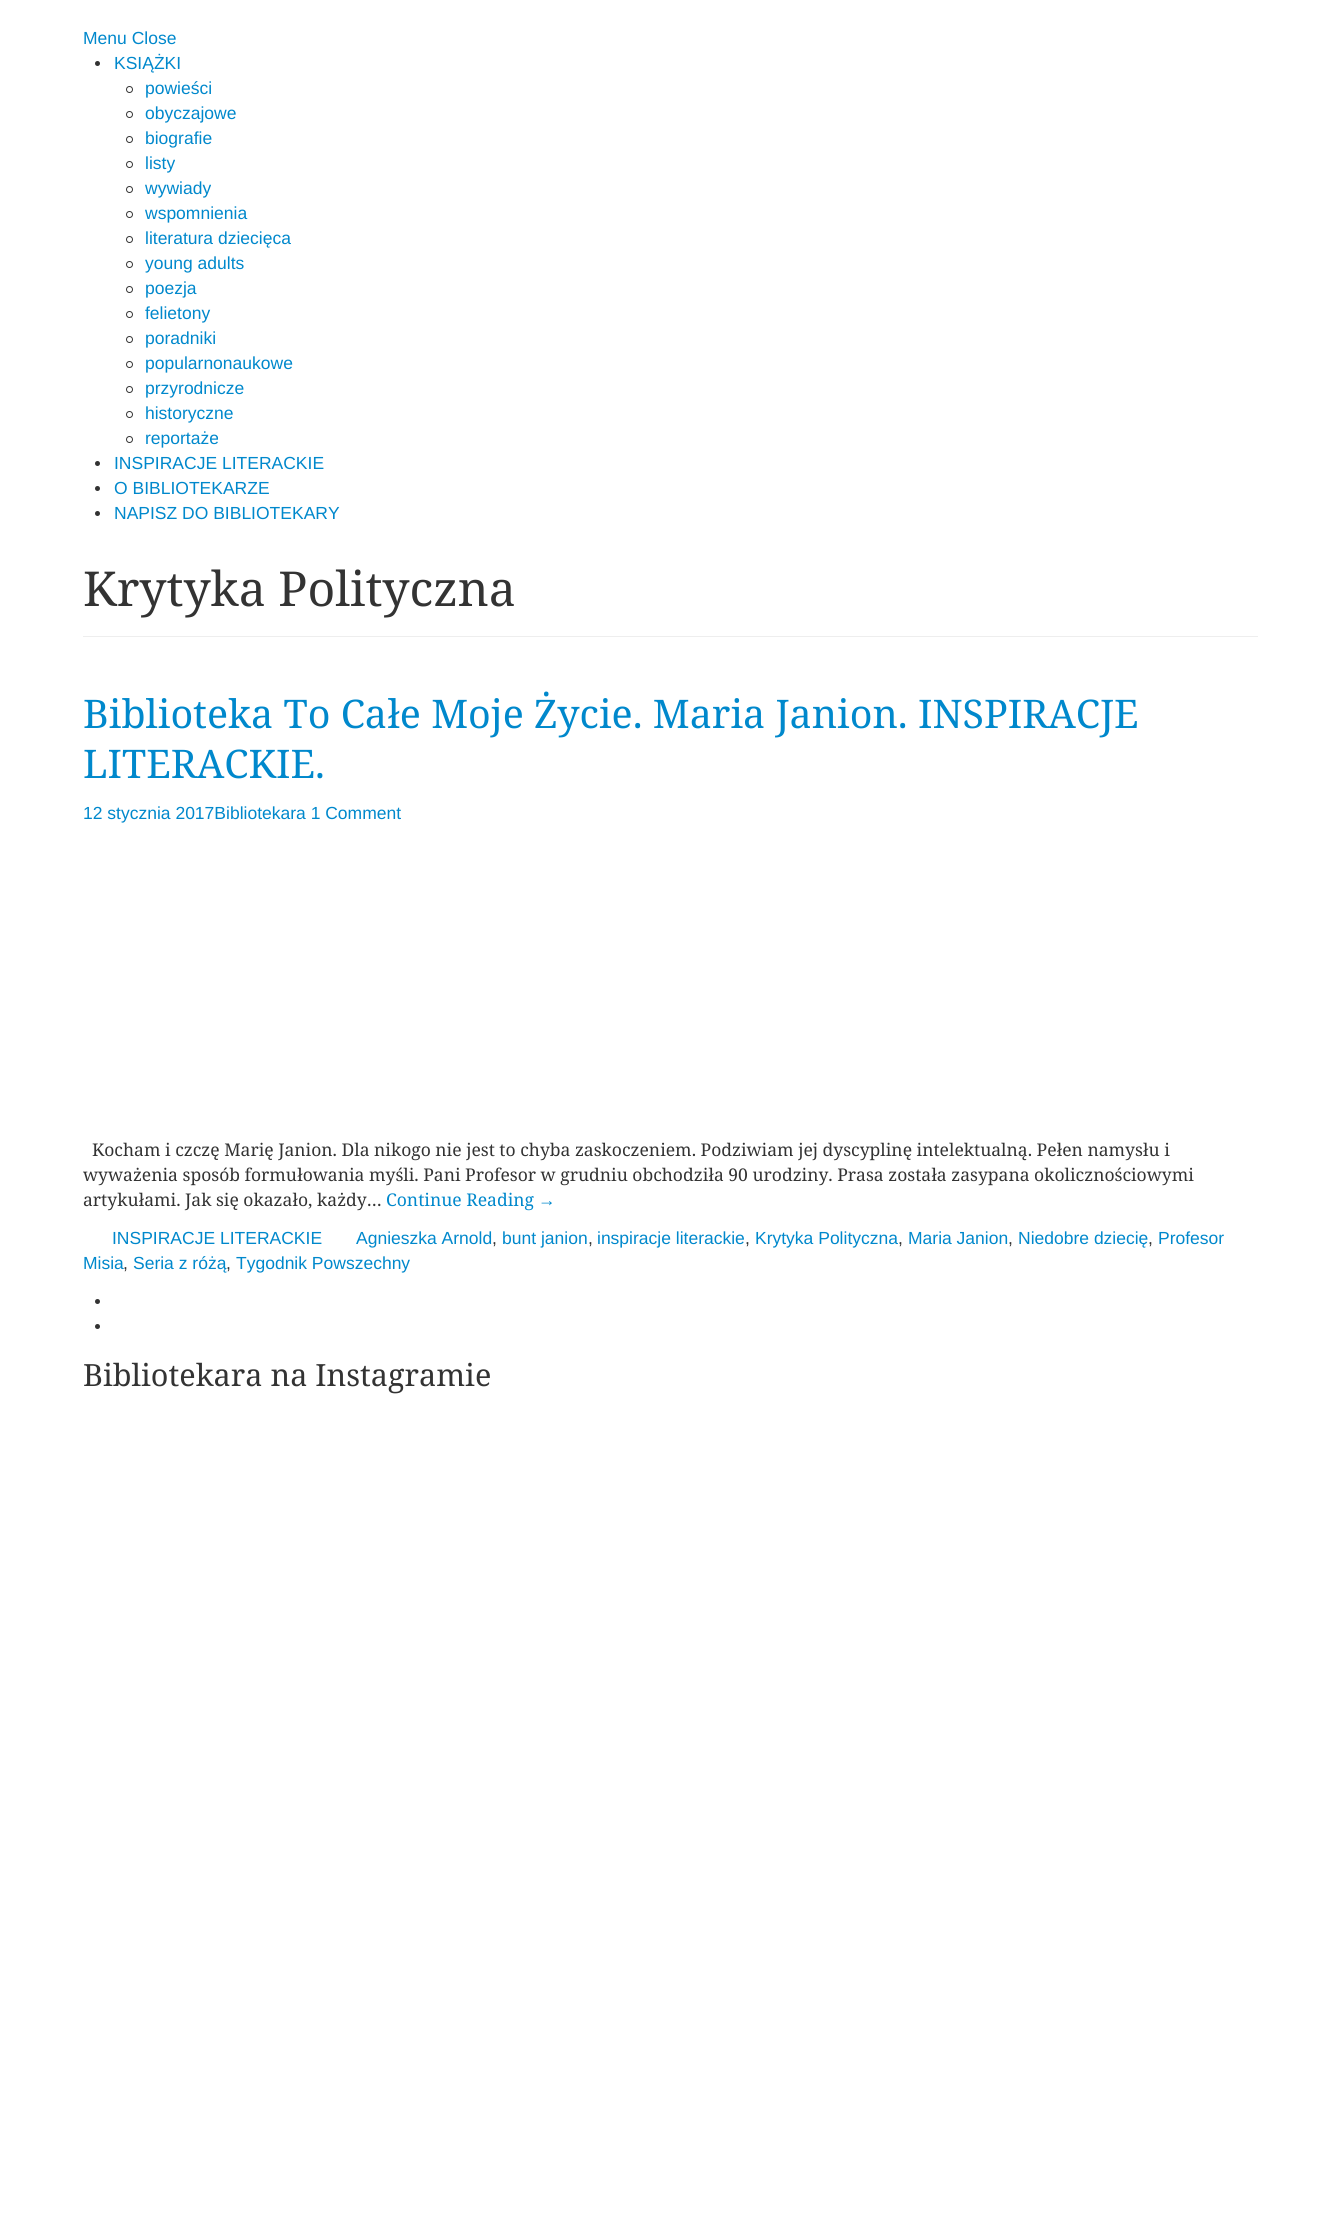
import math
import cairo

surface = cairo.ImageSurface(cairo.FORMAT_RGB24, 1340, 2227)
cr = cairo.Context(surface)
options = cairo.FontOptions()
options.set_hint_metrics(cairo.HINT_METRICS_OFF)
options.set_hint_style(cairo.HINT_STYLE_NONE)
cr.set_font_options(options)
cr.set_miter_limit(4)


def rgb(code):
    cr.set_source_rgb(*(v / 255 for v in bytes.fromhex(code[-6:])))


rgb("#ffffff")
cr.paint()
rgb("#333333")
cr.arc(97.5, 63.5, 2.5, 0, 2 * math.pi)
cr.fill()
cr.arc(129.5, 89.5, 3, 0, 2 * math.pi)
cr.set_line_width(1)
cr.stroke()
cr.arc(129.5, 114.5, 3, 0, 2 * math.pi)
cr.stroke()
cr.arc(129.5, 139.5, 3, 0, 2 * math.pi)
cr.stroke()
cr.arc(129.5, 164.5, 3, 0, 2 * math.pi)
cr.stroke()
cr.arc(129.5, 189.5, 3, 0, 2 * math.pi)
cr.stroke()
cr.arc(129.5, 214.5, 3, 0, 2 * math.pi)
cr.stroke()
cr.arc(129.5, 239.5, 3, 0, 2 * math.pi)
cr.stroke()
cr.arc(129.5, 264.5, 3, 0, 2 * math.pi)
cr.stroke()
cr.arc(129.5, 289.5, 3, 0, 2 * math.pi)
cr.stroke()
cr.arc(129.5, 314.5, 3, 0, 2 * math.pi)
cr.stroke()
cr.arc(129.5, 339.5, 3, 0, 2 * math.pi)
cr.stroke()
cr.arc(129.5, 364.5, 3, 0, 2 * math.pi)
cr.stroke()
cr.arc(129.5, 389.5, 3, 0, 2 * math.pi)
cr.stroke()
cr.arc(129.5, 414.5, 3, 0, 2 * math.pi)
cr.stroke()
cr.arc(129.5, 439.5, 3, 0, 2 * math.pi)
cr.stroke()
cr.arc(97.5, 463.5, 2.5, 0, 2 * math.pi)
cr.fill()
cr.arc(97.5, 488.5, 2.5, 0, 2 * math.pi)
cr.fill()
cr.arc(97.5, 513.5, 2.5, 0, 2 * math.pi)
cr.fill()
rgb("#eeeeee")
cr.rectangle(83, 636, 1175, 1)
cr.fill()
rgb("#333333")
cr.arc(97.5, 1301.5, 2.5, 0, 2 * math.pi)
cr.fill()
cr.arc(97.5, 1326.5, 2.5, 0, 2 * math.pi)
cr.fill()
cr.select_font_face("Liberation Sans")
cr.set_font_size(17.5)
rgb("#0088cc")
for x, y, s in [
    (83, 44, "Menu Close"),
    (114, 69, "KSIĄŻKI"),
    (145, 94, "powieści"),
    (145, 119, "obyczajowe"),
    (145, 144, "biografie"),
    (145, 169, "listy"),
    (145, 194, "wywiady"),
    (145, 219, "wspomnienia"),
    (145, 244, "literatura dziecięca"),
    (145, 269, "young adults"),
    (145, 294, "poezja"),
    (145, 319, "felietony"),
    (145, 344, "poradniki"),
    (145, 369, "popularnonaukowe"),
    (145, 394, "przyrodnicze"),
    (145, 419, "historyczne"),
    (145, 444, "reportaże"),
    (114, 469, "INSPIRACJE LITERACKIE"),
    (114, 494, "O BIBLIOTEKARZE"),
    (114, 519, "NAPISZ DO BIBLIOTEKARY"),
]:
    cr.move_to(x, y)
    cr.show_text(s)
cr.select_font_face("Noto Serif")
cr.set_font_size(48.1)
rgb("#333333")
cr.move_to(83, 606)
cr.show_text("Krytyka Polityczna")
cr.set_font_size(39.4)
rgb("#0088cc")
cr.move_to(83, 728)
cr.show_text("Biblioteka To Całe Moje Życie. Maria Janion. INSPIRACJE")
cr.move_to(83, 778)
cr.show_text("LITERACKIE.")
cr.select_font_face("Liberation Sans")
cr.set_font_size(17.5)
cr.move_to(83, 819)
cr.show_text("12 stycznia 2017Bibliotekara 1 Comment")
cr.select_font_face("Noto Serif")
rgb("#333333")
for x, y, s in [
    (92, 1156, "Kocham i czczę Marię Janion. Dla nikogo nie jest to chyba zaskoczeniem. Podziwiam jej dyscyplinę intelektualną. Pełen namysłu i"),
    (83, 1181, "wyważenia sposób formułowania myśli. Pani Profesor w grudniu obchodziła 90 urodziny. Prasa została zasypana okolicznościowymi"),
    (83, 1206, "artykułami. Jak się okazało, każdy…"),
]:
    cr.move_to(x, y)
    cr.show_text(s)
rgb("#0088cc")
cr.move_to(386, 1206)
cr.show_text("Continue Reading")
cr.select_font_face("Liberation Serif")
cr.move_to(538, 1206)
cr.show_text("→")
cr.select_font_face("Liberation Sans")
cr.move_to(112, 1244)
cr.show_text("INSPIRACJE LITERACKIE")
cr.move_to(356, 1244)
cr.show_text("Agnieszka Arnold")
rgb("#333333")
cr.move_to(492, 1244)
cr.show_text(",")
rgb("#0088cc")
cr.move_to(502, 1244)
cr.show_text("bunt janion")
rgb("#333333")
cr.move_to(588, 1244)
cr.show_text(",")
rgb("#0088cc")
cr.move_to(597, 1244)
cr.show_text("inspiracje literackie")
rgb("#333333")
cr.move_to(745, 1244)
cr.show_text(",")
rgb("#0088cc")
cr.move_to(755, 1244)
cr.show_text("Krytyka Polityczna")
rgb("#333333")
cr.move_to(898, 1244)
cr.show_text(",")
rgb("#0088cc")
cr.move_to(908, 1244)
cr.show_text("Maria Janion")
rgb("#333333")
cr.move_to(1008, 1244)
cr.show_text(",")
rgb("#0088cc")
cr.move_to(1018, 1244)
cr.show_text("Niedobre dziecię")
rgb("#333333")
cr.move_to(1148, 1244)
cr.show_text(",")
rgb("#0088cc")
cr.move_to(1158, 1244)
cr.show_text("Profesor")
cr.move_to(83, 1269)
cr.show_text("Misia")
rgb("#333333")
cr.move_to(123, 1269)
cr.show_text(",")
rgb("#0088cc")
cr.move_to(133, 1269)
cr.show_text("Seria z różą")
rgb("#333333")
cr.move_to(226, 1269)
cr.show_text(",")
rgb("#0088cc")
cr.move_to(236, 1269)
cr.show_text("Tygodnik Powszechny")
cr.select_font_face("Noto Serif")
cr.set_font_size(30.6)
rgb("#333333")
cr.move_to(83, 1386)
cr.show_text("Bibliotekara na Instagramie")
surface.write_to_png("page.png")
